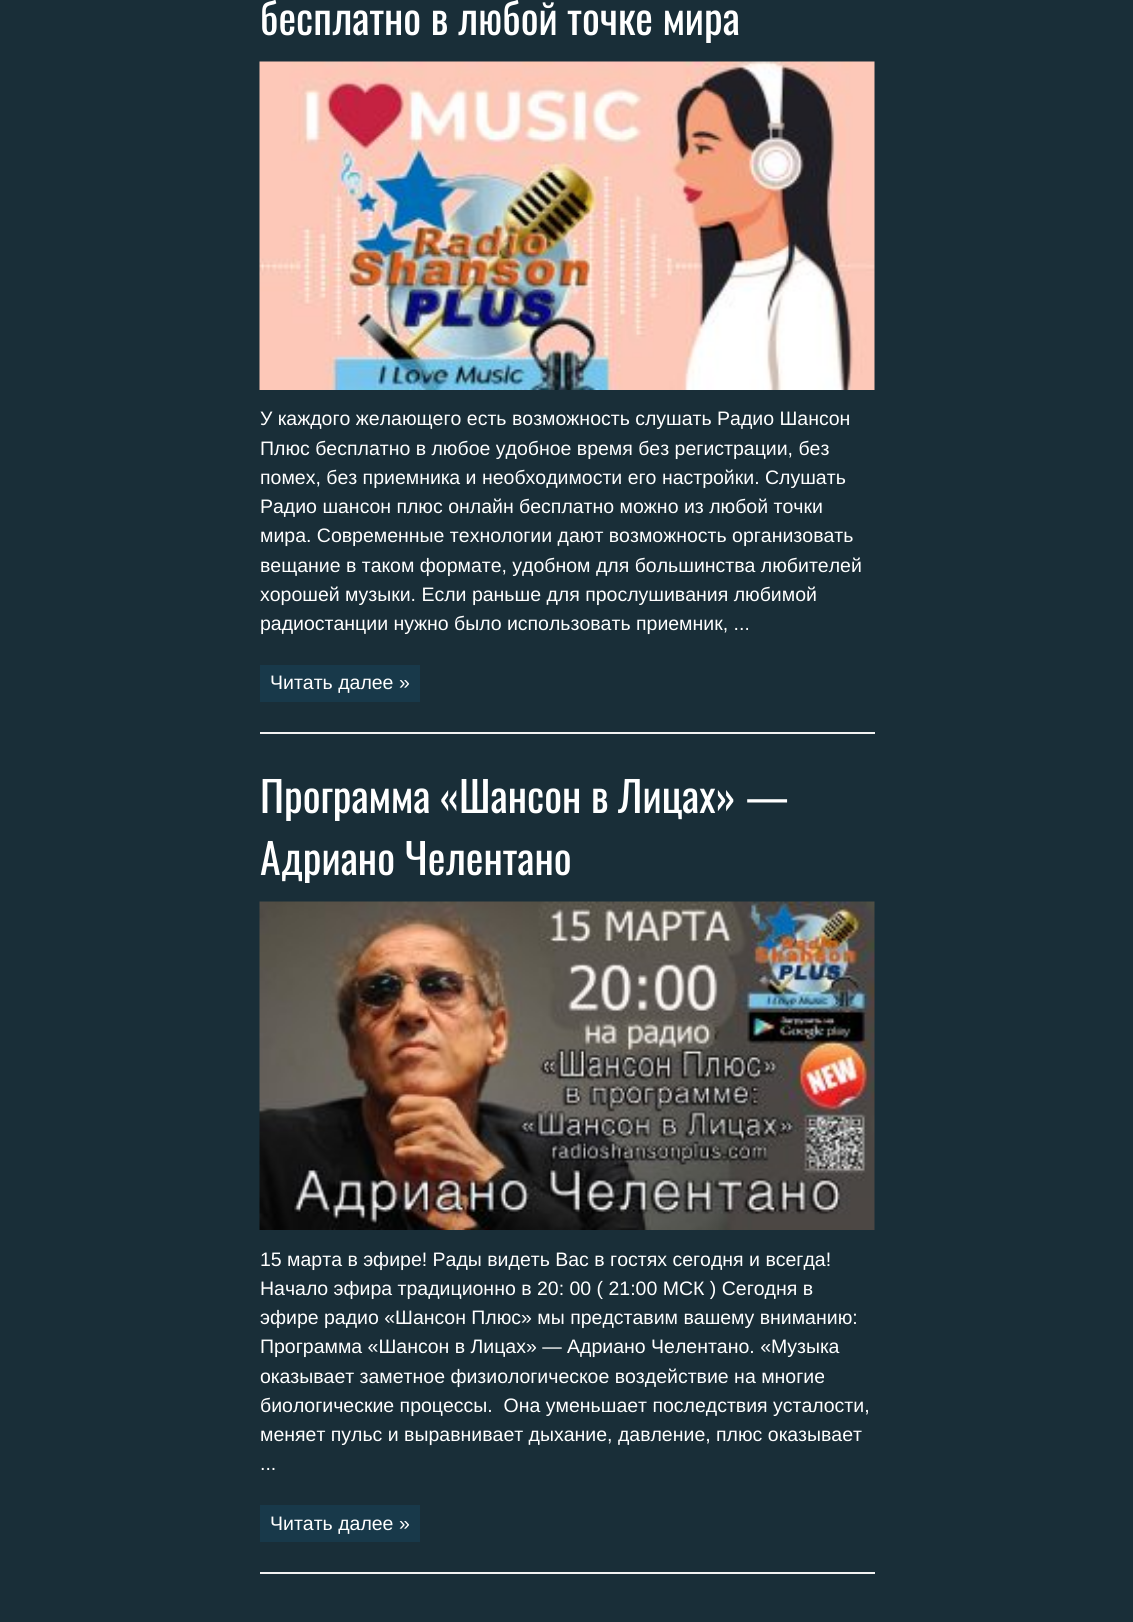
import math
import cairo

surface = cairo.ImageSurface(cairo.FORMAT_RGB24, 1133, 1622)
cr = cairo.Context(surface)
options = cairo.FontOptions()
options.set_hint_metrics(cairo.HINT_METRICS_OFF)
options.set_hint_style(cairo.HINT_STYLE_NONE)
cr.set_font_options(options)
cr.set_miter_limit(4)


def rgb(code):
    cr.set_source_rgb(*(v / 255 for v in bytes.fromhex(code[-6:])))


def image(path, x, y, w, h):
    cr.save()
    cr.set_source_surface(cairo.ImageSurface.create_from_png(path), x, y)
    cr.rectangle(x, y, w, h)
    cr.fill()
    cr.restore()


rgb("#192e38")
cr.paint()
rgb("#f2f2f2")
cr.rectangle(260, 732, 615, 2)
cr.fill()
image("img/1.png", 259, 61, 616, 329)
rgb("#18394a")
cr.rectangle(260, 665, 160, 37)
cr.fill()
rgb("#f2f2f2")
cr.rectangle(260, 1572, 615, 2)
cr.fill()
image("img/2.png", 259, 901, 616, 329)
rgb("#18394a")
cr.rectangle(260, 1505, 160, 37)
cr.fill()
cr.select_font_face("Oswald")
cr.set_font_size(42)
rgb("#ffffff")
cr.move_to(260, 35)
cr.show_text("бесплатно в любой точке мира")
cr.select_font_face("Liberation Sans")
cr.set_font_size(19.5)
for x, y, s in [
    (260, 425, "У каждого желающего есть возможность слушать Радио Шансон"),
    (260, 455, "Плюс бесплатно в любое удобное время без регистрации, без"),
    (260, 484, "помех, без приемника и необходимости его настройки. Слушать"),
    (260, 513, "Радио шансон плюс онлайн бесплатно можно из любой точки"),
    (260, 542, "мира. Современные технологии дают возможность организовать"),
    (260, 572, "вещание в таком формате, удобном для большинства любителей"),
    (260, 601, "хорошей музыки. Если раньше для прослушивания любимой"),
    (260, 630, "радиостанции нужно было использовать приемник, ..."),
    (270, 689, "Читать далее »"),
]:
    cr.move_to(x, y)
    cr.show_text(s)
cr.select_font_face("Oswald")
cr.set_font_size(42)
cr.move_to(260, 813)
cr.show_text("Программа «Шансон в Лицах» —")
cr.move_to(260, 875)
cr.show_text("Адриано Челентано")
cr.select_font_face("Liberation Sans")
cr.set_font_size(19.5)
for x, y, s in [
    (260, 1266, "15 марта в эфире! Рады видеть Вас в гостях сегодня и всегда!"),
    (260, 1295, "Начало эфира традиционно в 20: 00 ( 21:00 МСК ) Сегодня в"),
    (260, 1324, "эфире радио «Шансон Плюс» мы представим вашему вниманию:"),
    (260, 1353, "Программа «Шансон в Лицах» — Адриано Челентано. «Музыка"),
    (260, 1383, "оказывает заметное физиологическое воздействие на многие"),
    (260, 1412, "биологические процессы.  Она уменьшает последствия усталости,"),
    (260, 1441, "меняет пульс и выравнивает дыхание, давление, плюс оказывает"),
    (260, 1470, "..."),
    (270, 1530, "Читать далее »"),
]:
    cr.move_to(x, y)
    cr.show_text(s)
surface.write_to_png("page.png")
